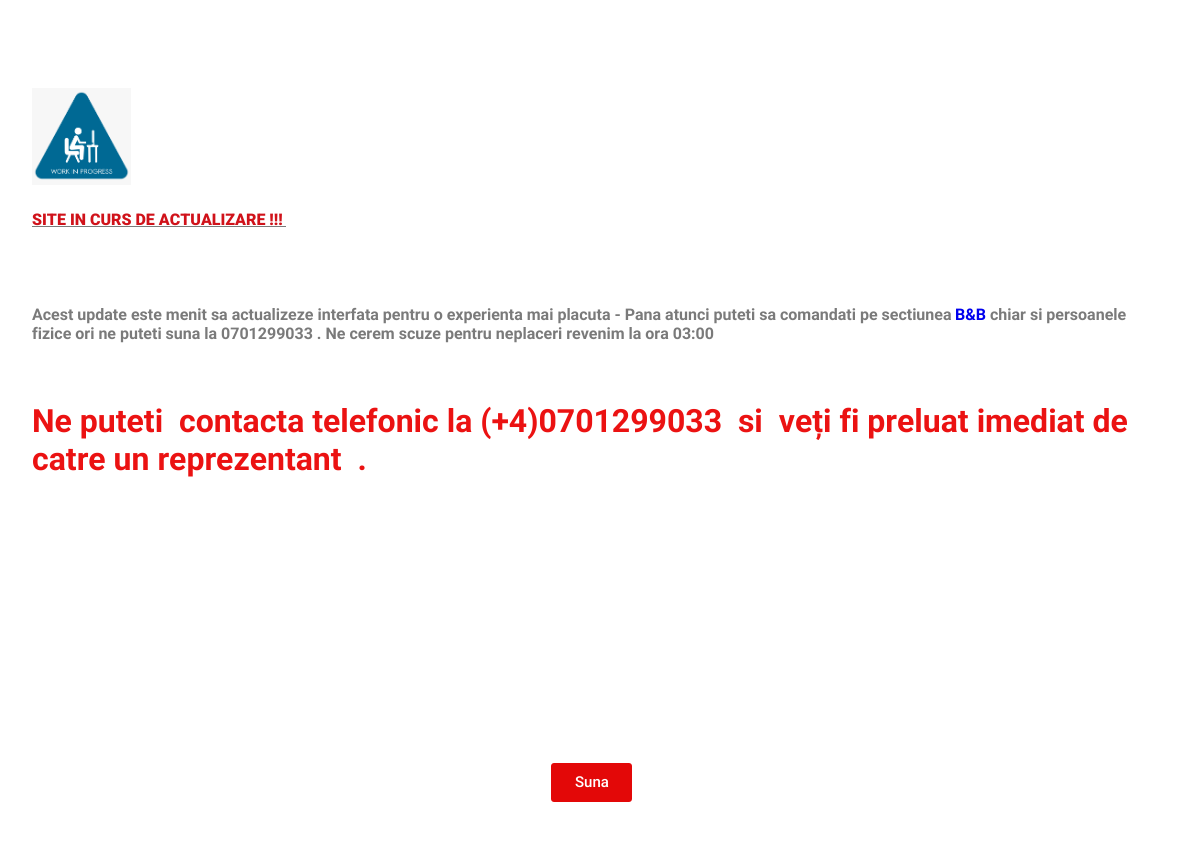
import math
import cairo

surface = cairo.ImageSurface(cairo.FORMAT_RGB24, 1183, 848)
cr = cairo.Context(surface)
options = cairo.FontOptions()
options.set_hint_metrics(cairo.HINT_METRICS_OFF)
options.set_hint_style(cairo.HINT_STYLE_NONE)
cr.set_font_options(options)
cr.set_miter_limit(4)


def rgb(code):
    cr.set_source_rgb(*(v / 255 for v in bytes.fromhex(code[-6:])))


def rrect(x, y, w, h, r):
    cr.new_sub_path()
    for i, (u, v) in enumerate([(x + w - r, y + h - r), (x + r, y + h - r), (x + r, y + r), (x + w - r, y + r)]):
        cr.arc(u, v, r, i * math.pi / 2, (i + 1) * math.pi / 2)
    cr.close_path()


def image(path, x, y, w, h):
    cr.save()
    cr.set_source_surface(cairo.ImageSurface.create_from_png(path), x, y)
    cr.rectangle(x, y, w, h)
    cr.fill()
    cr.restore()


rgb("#ffffff")
cr.paint()
image("img/1.png", 32, 88, 99, 97)
rgb("#7a7a7a")
cr.rectangle(32, 226, 254, 1)
cr.fill()
rgb("#e30808")
rrect(551, 763, 81, 39, 3)
cr.fill()
cr.select_font_face("Roboto Black")
cr.set_font_size(16)
rgb("#d0121a")
cr.move_to(32, 225)
cr.show_text("SITE IN CURS DE ACTUALIZARE !!!")
cr.select_font_face("Roboto", cairo.FONT_SLANT_NORMAL, cairo.FONT_WEIGHT_BOLD)
rgb("#7a7a7a")
cr.move_to(32, 320)
cr.show_text("Acest update este menit sa actualizeze interfata pentru o experienta mai placuta - Pana atunci puteti sa comandati pe sectiunea")
rgb("#0000ee")
cr.move_to(955, 320)
cr.show_text("B&B")
rgb("#7a7a7a")
cr.move_to(990, 320)
cr.show_text("chiar si persoanele")
cr.move_to(32, 339)
cr.show_text("fizice ori ne puteti suna la 0701299033 . Ne cerem scuze pentru neplaceri revenim la ora 03:00")
cr.set_font_size(32)
rgb("#eb1212")
cr.move_to(32, 432)
cr.show_text("Ne puteti  contacta telefonic la (+4)0701299033  si  veți fi preluat imediat de")
cr.move_to(32, 470)
cr.show_text("catre un reprezentant  .")
cr.select_font_face("Roboto Medium")
cr.set_font_size(15)
rgb("#ffffff")
cr.move_to(575, 787)
cr.show_text("Suna")
surface.write_to_png("page.png")
